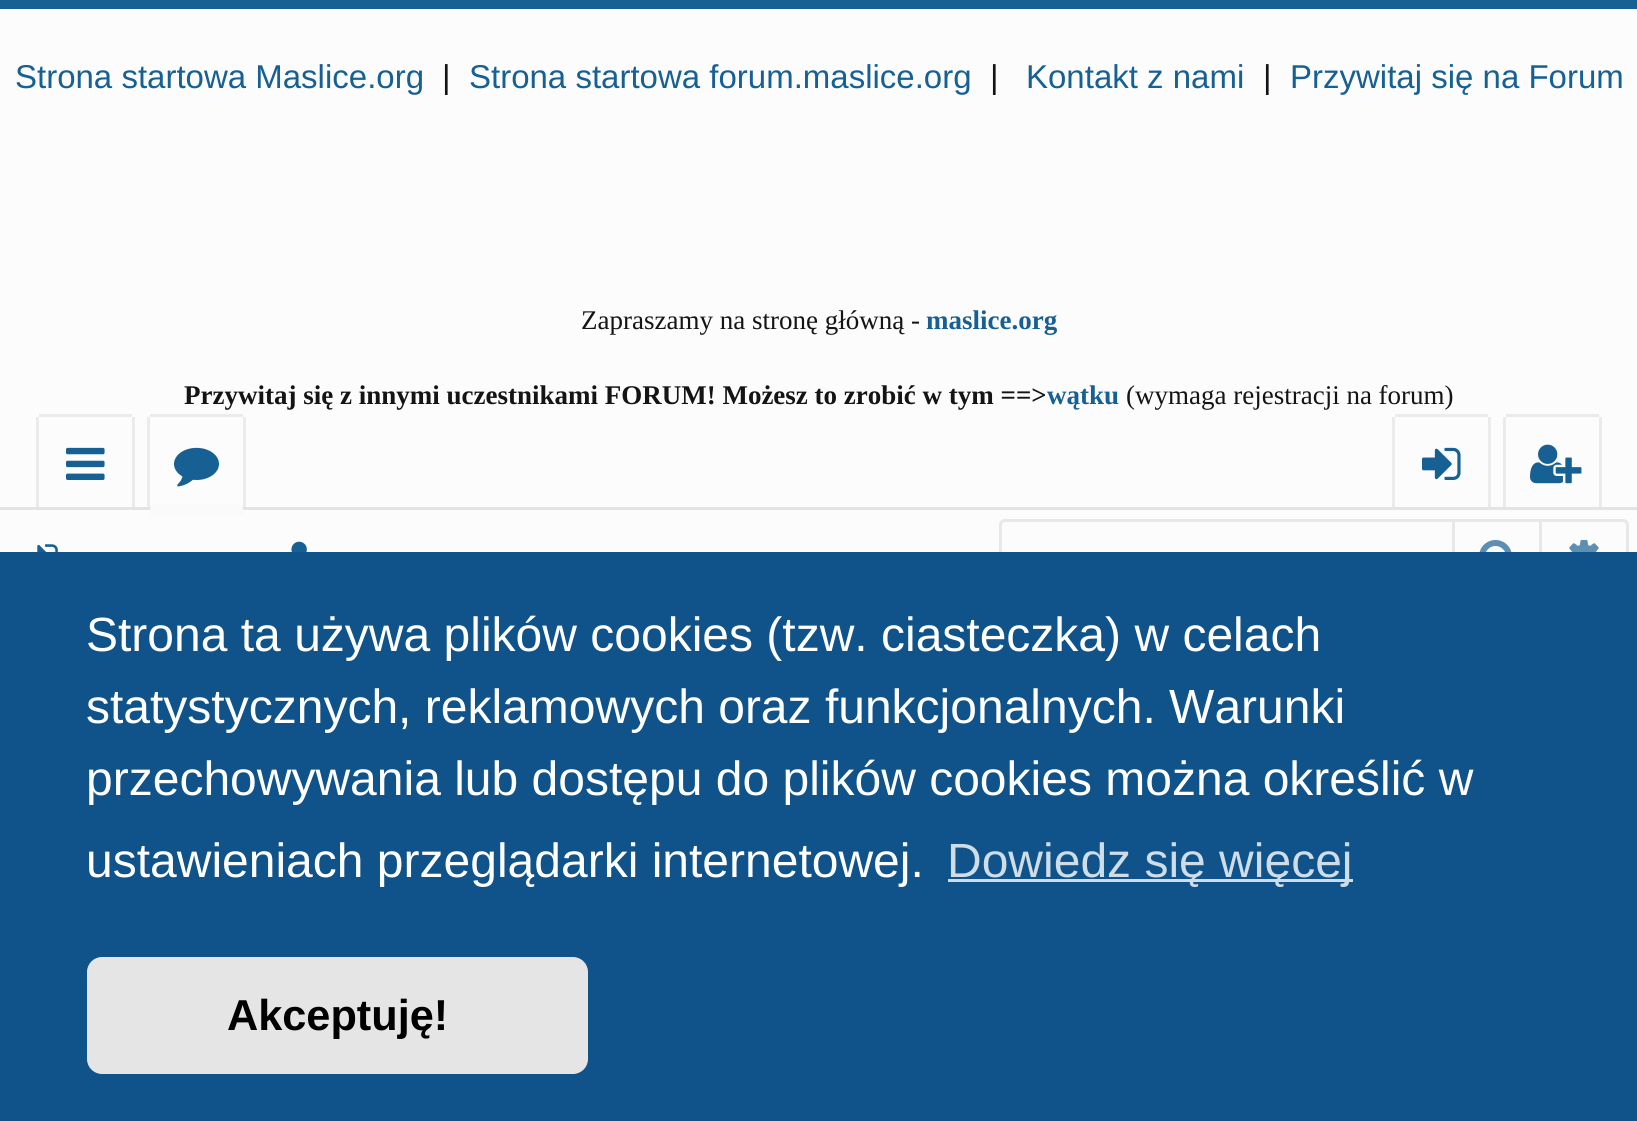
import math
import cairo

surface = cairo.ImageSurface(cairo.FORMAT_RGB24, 1637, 1121)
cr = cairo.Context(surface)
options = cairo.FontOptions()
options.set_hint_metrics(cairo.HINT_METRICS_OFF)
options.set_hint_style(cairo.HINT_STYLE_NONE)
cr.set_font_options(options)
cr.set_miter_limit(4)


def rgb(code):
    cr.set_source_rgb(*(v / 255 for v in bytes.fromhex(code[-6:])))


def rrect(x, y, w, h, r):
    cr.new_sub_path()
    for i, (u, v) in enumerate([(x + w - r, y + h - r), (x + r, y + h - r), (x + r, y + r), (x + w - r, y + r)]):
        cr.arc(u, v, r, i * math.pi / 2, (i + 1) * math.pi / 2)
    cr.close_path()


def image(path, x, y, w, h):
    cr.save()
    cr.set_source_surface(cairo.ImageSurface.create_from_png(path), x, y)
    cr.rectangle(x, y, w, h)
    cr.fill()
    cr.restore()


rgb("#fcfcfc")
cr.paint()
for x, y, w, h, color in [
    (0, 0, 1637, 9, "#176093"),
    (39, 414, 93, 3, "#ebebeb"),
    (132, 417, 3, 93, "#ebebeb"),
    (36, 417, 3, 93, "#ebebeb"),
]:
    rgb(color)
    cr.rectangle(x, y, w, h)
    cr.fill()
image("img/1.png", 66, 447, 39, 33)
for x, y, w, h, color in [
    (150, 414, 93, 3, "#ebebeb"),
    (243, 417, 3, 93, "#ebebeb"),
    (147, 417, 3, 93, "#ebebeb"),
]:
    rgb(color)
    cr.rectangle(x, y, w, h)
    cr.fill()
image("img/2.png", 174, 447, 45, 40)
for x, y, w, h, color in [
    (1488, 417, 3, 93, "#ebebeb"),
    (1392, 417, 3, 93, "#ebebeb"),
    (1599, 417, 3, 93, "#ebebeb"),
    (1503, 417, 3, 93, "#ebebeb"),
    (0, 507, 1637, 3, "#e4e4e4"),
]:
    rgb(color)
    cr.rectangle(x, y, w, h)
    cr.fill()
rgb("#fafafa")
cr.new_path()
cr.move_to(156, 504)
cr.line_to(237, 504)
cr.curve_to(240.5, 504, 243, 506.5, 243, 510)
cr.line_to(243, 516)
cr.line_to(150, 516)
cr.line_to(150, 510)
cr.curve_to(150, 506.5, 152.5, 504, 156, 504)
cr.close_path()
cr.fill()
rgb("#ebebeb")
cr.rectangle(1395, 414, 93, 3)
cr.fill()
image("img/3.png", 1422, 447, 39, 33)
cr.rectangle(1506, 414, 93, 3)
cr.fill()
image("img/4.png", 1530, 444, 52, 40)
image("img/5.png", 37, 544, 21, 8)
image("img/6.png", 291, 541, 16, 11)
rrect(1000.5, 520.5, 627, 75, 4.5)
rgb("#e8e8e8")
cr.set_line_width(3)
cr.stroke()
cr.rectangle(1539, 522, 3, 30)
cr.fill()
cr.rectangle(1452, 522, 3, 30)
cr.fill()
image("img/7.png", 1479, 540, 33, 12)
image("img/8.png", 1569, 540, 30, 12)
rgb("#0f538a")
cr.rectangle(0, 552, 1637, 569)
cr.fill()
rgb("#cfdde8")
cr.rectangle(948, 879, 405, 3)
cr.fill()
rgb("#e5e5e5")
rrect(87, 957, 501, 117, 15)
cr.fill()
cr.select_font_face("Liberation Sans")
cr.set_font_size(33)
rgb("#176093")
cr.move_to(15, 88)
cr.show_text("Strona startowa Maslice.org")
rgb("#141414")
cr.move_to(442, 88)
cr.show_text("|")
rgb("#176093")
cr.move_to(469, 88)
cr.show_text("Strona startowa forum.maslice.org")
rgb("#141414")
cr.move_to(990, 88)
cr.show_text("|")
rgb("#176093")
cr.move_to(1026, 88)
cr.show_text("Kontakt z nami")
rgb("#141414")
cr.move_to(1263, 88)
cr.show_text("|")
rgb("#176093")
cr.move_to(1290, 88)
cr.show_text("Przywitaj się na Forum")
cr.select_font_face("Liberation Serif", cairo.FONT_SLANT_NORMAL, cairo.FONT_WEIGHT_BOLD)
cr.set_font_size(27)
cr.move_to(926, 329)
cr.show_text("maslice.org")
rgb("#141414")
cr.move_to(184, 404)
cr.show_text("Przywitaj się z innymi uczestnikami FORUM! Możesz to zrobić w tym ==>")
rgb("#176093")
cr.move_to(1047, 404)
cr.show_text("wątku")
cr.select_font_face("Liberation Serif")
rgb("#141414")
cr.move_to(581, 329)
cr.show_text("Zapraszamy na stronę główną -")
cr.move_to(1126, 404)
cr.show_text("(wymaga rejestracji na forum)")
cr.select_font_face("Liberation Sans")
cr.set_font_size(48)
rgb("#ffffff")
for x, y, s in [
    (86, 651, "Strona ta używa plików cookies (tzw. ciasteczka) w celach"),
    (86, 723, "statystycznych, reklamowych oraz funkcjonalnych. Warunki"),
    (86, 795, "przechowywania lub dostępu do plików cookies można określić w"),
    (86, 877, "ustawieniach przeglądarki internetowej."),
]:
    cr.move_to(x, y)
    cr.show_text(s)
rgb("#cfdde8")
cr.move_to(947, 877)
cr.show_text("Dowiedz się więcej")
cr.select_font_face("Liberation Sans", cairo.FONT_SLANT_NORMAL, cairo.FONT_WEIGHT_BOLD)
cr.set_font_size(43.25)
rgb("#000000")
cr.move_to(227, 1030)
cr.show_text("Akceptuję!")
surface.write_to_png("page.png")
